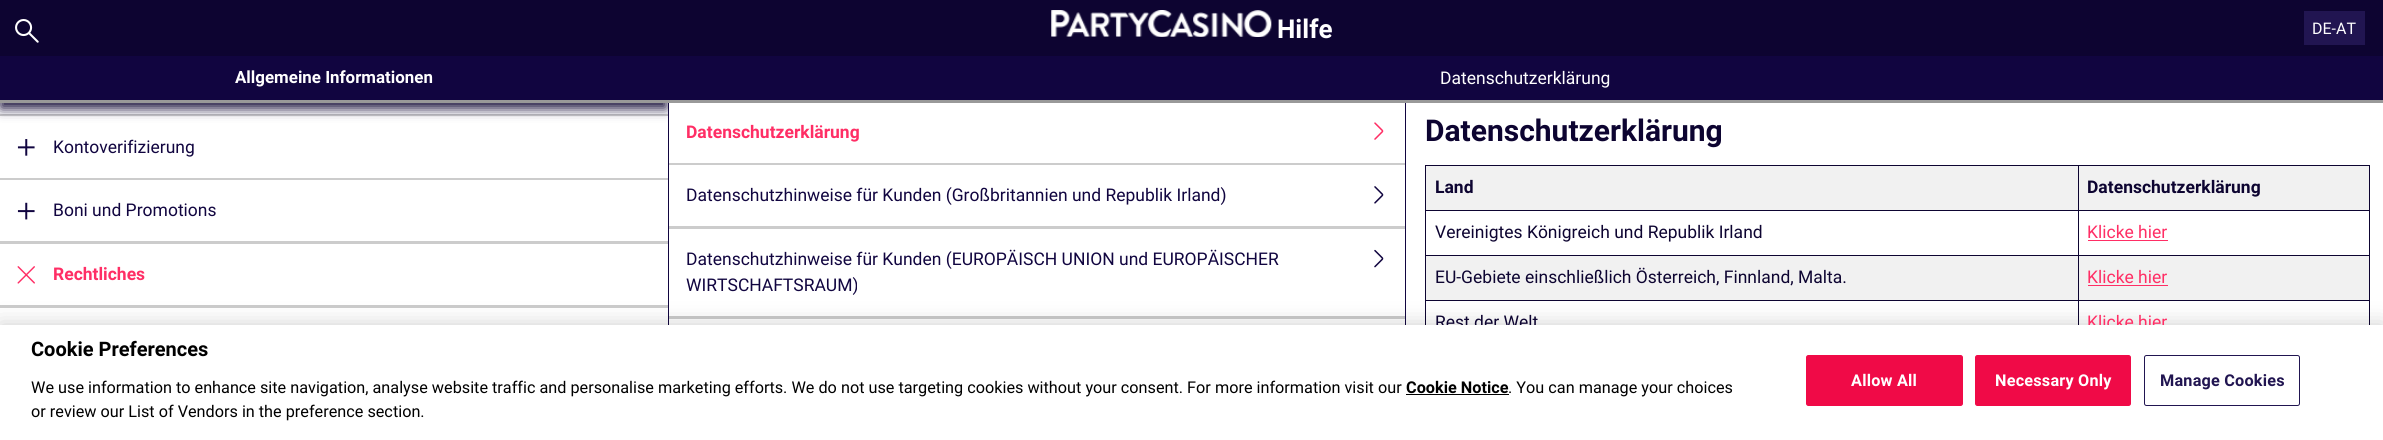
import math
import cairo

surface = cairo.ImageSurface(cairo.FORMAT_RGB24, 2383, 440)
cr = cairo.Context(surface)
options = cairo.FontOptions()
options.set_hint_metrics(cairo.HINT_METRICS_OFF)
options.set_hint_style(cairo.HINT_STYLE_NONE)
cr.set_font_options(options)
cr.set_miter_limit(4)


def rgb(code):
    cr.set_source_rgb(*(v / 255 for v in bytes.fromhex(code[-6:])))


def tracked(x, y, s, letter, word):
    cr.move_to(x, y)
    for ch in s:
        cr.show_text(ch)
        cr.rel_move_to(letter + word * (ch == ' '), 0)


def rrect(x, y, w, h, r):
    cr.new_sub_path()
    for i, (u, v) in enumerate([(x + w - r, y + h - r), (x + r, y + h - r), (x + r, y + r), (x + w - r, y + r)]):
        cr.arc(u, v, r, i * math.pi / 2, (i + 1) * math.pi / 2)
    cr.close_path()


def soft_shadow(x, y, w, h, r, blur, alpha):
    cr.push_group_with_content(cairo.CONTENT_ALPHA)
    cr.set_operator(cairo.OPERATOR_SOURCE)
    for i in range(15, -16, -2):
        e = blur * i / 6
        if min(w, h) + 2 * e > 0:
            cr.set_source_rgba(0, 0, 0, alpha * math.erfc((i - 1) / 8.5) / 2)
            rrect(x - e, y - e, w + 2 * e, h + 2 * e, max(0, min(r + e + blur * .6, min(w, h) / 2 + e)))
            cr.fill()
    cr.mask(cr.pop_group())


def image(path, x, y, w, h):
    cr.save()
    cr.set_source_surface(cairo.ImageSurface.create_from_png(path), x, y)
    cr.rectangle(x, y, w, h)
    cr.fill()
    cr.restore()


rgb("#ffffff")
cr.paint()
rgb("#cccccc")
cr.rectangle(0, 114, 668, 2)
cr.fill()
rgb("#110540")
cr.rectangle(668, 103, 1, 222)
cr.fill()
cr.save()
cr.rectangle(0, 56, 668, 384)
cr.clip()
rgb("#0d0431")
soft_shadow(1, 64, 665, 44, 0, 6, 1)
cr.restore()
rgb("#0d0431")
cr.rectangle(0, 0, 2383, 56)
cr.fill()
image("img/1.png", 15, 19, 24, 24)
image("img/2.png", 1051, 10, 221, 27)
for x, y, w, h, color in [
    (2304, 11, 61, 34, "#211551"),
    (0, 56, 2383, 44, "#110540"),
    (1405, 101, 1, 224, "#110540"),
    (0, 100, 2383, 3, "#999999"),
    (0, 178, 668, 2, "#cccccc"),
]:
    rgb(color)
    cr.rectangle(x, y, w, h)
    cr.fill()
image("img/3.png", 17, 139, 18, 17)
cr.rectangle(0, 241, 668, 3)
cr.fill()
image("img/4.png", 17, 202, 18, 18)
image("img/5.png", 17, 266, 18, 18)
cr.rectangle(0, 305, 668, 3)
cr.fill()
cr.rectangle(669, 163, 736, 2)
cr.fill()
image("img/6.png", 1374, 122, 10, 18)
cr.rectangle(669, 226, 736, 3)
cr.fill()
image("img/7.png", 1374, 186, 10, 18)
cr.rectangle(669, 316, 736, 3)
cr.fill()
image("img/8.png", 1374, 249, 10, 19)
for x, y, w, h, color in [
    (1425, 165, 945, 1, "#0d0431"),
    (2369, 165, 1, 160, "#0d0431"),
    (1425, 165, 1, 160, "#0d0431"),
    (1426, 166, 943, 44, "#f1f1f1"),
    (2078, 210, 292, 1, "#0d0431"),
    (2078, 255, 292, 1, "#0d0431"),
    (1426, 256, 943, 44, "#f1f1f1"),
    (2078, 300, 292, 1, "#0d0431"),
    (2078, 300, 1, 25, "#0d0431"),
    (1425, 300, 654, 1, "#0d0431"),
    (2078, 255, 1, 46, "#0d0431"),
    (1425, 255, 654, 1, "#0d0431"),
    (2078, 210, 1, 46, "#0d0431"),
    (1425, 210, 654, 1, "#0d0431"),
    (2078, 165, 1, 46, "#0d0431"),
    (2088, 240, 80, 1, "#ff2e65"),
    (2088, 285, 80, 1, "#ff2e65"),
]:
    rgb(color)
    cr.rectangle(x, y, w, h)
    cr.fill()
rgb("#000000")
soft_shadow(0, 325, 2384, 115, 0, 11, 0.2)
cr.select_font_face("Roboto", cairo.FONT_SLANT_NORMAL, cairo.FONT_WEIGHT_BOLD)
cr.set_font_size(26)
rgb("#ffffff")
cr.move_to(1277, 38)
cr.show_text("Hilfe")
cr.select_font_face("Roboto")
cr.set_font_size(16)
cr.move_to(2312, 34)
cr.show_text("DE-AT")
cr.select_font_face("Roboto", cairo.FONT_SLANT_NORMAL, cairo.FONT_WEIGHT_BOLD)
cr.set_font_size(16.9)
cr.move_to(235, 83)
cr.show_text("Allgemeine Informationen")
cr.select_font_face("Roboto")
cr.set_font_size(17.5)
rgb("#110540")
cr.move_to(53, 153)
cr.show_text("Kontoverifizierung")
cr.move_to(53, 216)
cr.show_text("Boni und Promotions")
cr.select_font_face("Roboto", cairo.FONT_SLANT_NORMAL, cairo.FONT_WEIGHT_BOLD)
rgb("#ff2e65")
cr.move_to(53, 280)
cr.show_text("Rechtliches")
cr.select_font_face("Roboto")
rgb("#ffffff")
cr.move_to(1440, 84)
cr.show_text("Datenschutzerklärung")
cr.select_font_face("Roboto", cairo.FONT_SLANT_NORMAL, cairo.FONT_WEIGHT_BOLD)
rgb("#ff2e65")
cr.move_to(686, 138)
cr.show_text("Datenschutzerklärung")
cr.select_font_face("Roboto")
rgb("#110540")
for x, y, s in [
    (686, 201, "Datenschutzhinweise für Kunden (Großbritannien und Republik Irland)"),
    (686, 265, "Datenschutzhinweise für Kunden (EUROPÄISCH UNION und EUROPÄISCHER"),
    (686, 291, "WIRTSCHAFTSRAUM)"),
]:
    cr.move_to(x, y)
    cr.show_text(s)
cr.select_font_face("Roboto", cairo.FONT_SLANT_NORMAL, cairo.FONT_WEIGHT_BOLD)
cr.set_font_size(30)
rgb("#0d0431")
cr.move_to(1425, 141)
cr.show_text("Datenschutzerklärung")
cr.set_font_size(17.5)
cr.move_to(1435, 193)
cr.show_text("Land")
cr.move_to(2087, 193)
cr.show_text("Datenschutzerklärung")
cr.select_font_face("Roboto")
cr.move_to(1435, 238)
cr.show_text("Vereinigtes Königreich und Republik Irland")
rgb("#ff2e65")
cr.move_to(2087, 238)
cr.show_text("Klicke hier")
rgb("#0d0431")
cr.move_to(1435, 283)
cr.show_text("EU-Gebiete einschließlich Österreich, Finnland, Malta.")
rgb("#ff2e65")
cr.move_to(2087, 283)
cr.show_text("Klicke hier")
rgb("#0d0431")
cr.move_to(1435, 328)
cr.show_text("Rest der Welt")
rgb("#ff2e65")
cr.move_to(2087, 328)
cr.show_text("Klicke hier")
rgb("#ffffff")
cr.rectangle(0, 325, 2383, 115)
cr.fill()
cr.select_font_face("Roboto", cairo.FONT_SLANT_NORMAL, cairo.FONT_WEIGHT_BOLD)
cr.set_font_size(20)
rgb("#000000")
cr.move_to(31, 356)
cr.show_text("Cookie Preferences")
cr.select_font_face("Roboto")
cr.set_font_size(16.25)
cr.move_to(31, 393)
cr.show_text("We use information to enhance site navigation, analyse website traffic and personalise marketing efforts. We do not use targeting cookies without your consent. For more information visit our")
cr.select_font_face("Roboto", cairo.FONT_SLANT_NORMAL, cairo.FONT_WEIGHT_BOLD)
cr.move_to(1406, 393)
cr.show_text("Cookie Notice")
cr.rectangle(1406, 394, 103, 1)
cr.fill()
cr.select_font_face("Roboto")
cr.move_to(1508, 393)
cr.show_text(". You can manage your choices")
cr.move_to(31, 417)
cr.show_text("or review our List of Vendors in the preference section.")
rgb("#f00a47")
rrect(1806.5, 355.5, 156, 50, 2)
cr.fill_preserve()
cr.set_line_width(1)
cr.stroke()
cr.select_font_face("Roboto", cairo.FONT_SLANT_NORMAL, cairo.FONT_WEIGHT_BOLD)
rgb("#ffffff")
tracked(1851, 386, "Allow All", 0.2, 0)
rgb("#f00a47")
rrect(1975.5, 355.5, 155, 50, 2)
cr.fill_preserve()
cr.stroke()
rgb("#ffffff")
tracked(1995, 386, "Necessary Only", 0.2, 0)
rrect(2144.5, 355.5, 155, 50, 2)
rgb("#211551")
cr.stroke()
tracked(2160, 386, "Manage Cookies", 0.2, 0)
surface.write_to_png("page.png")
